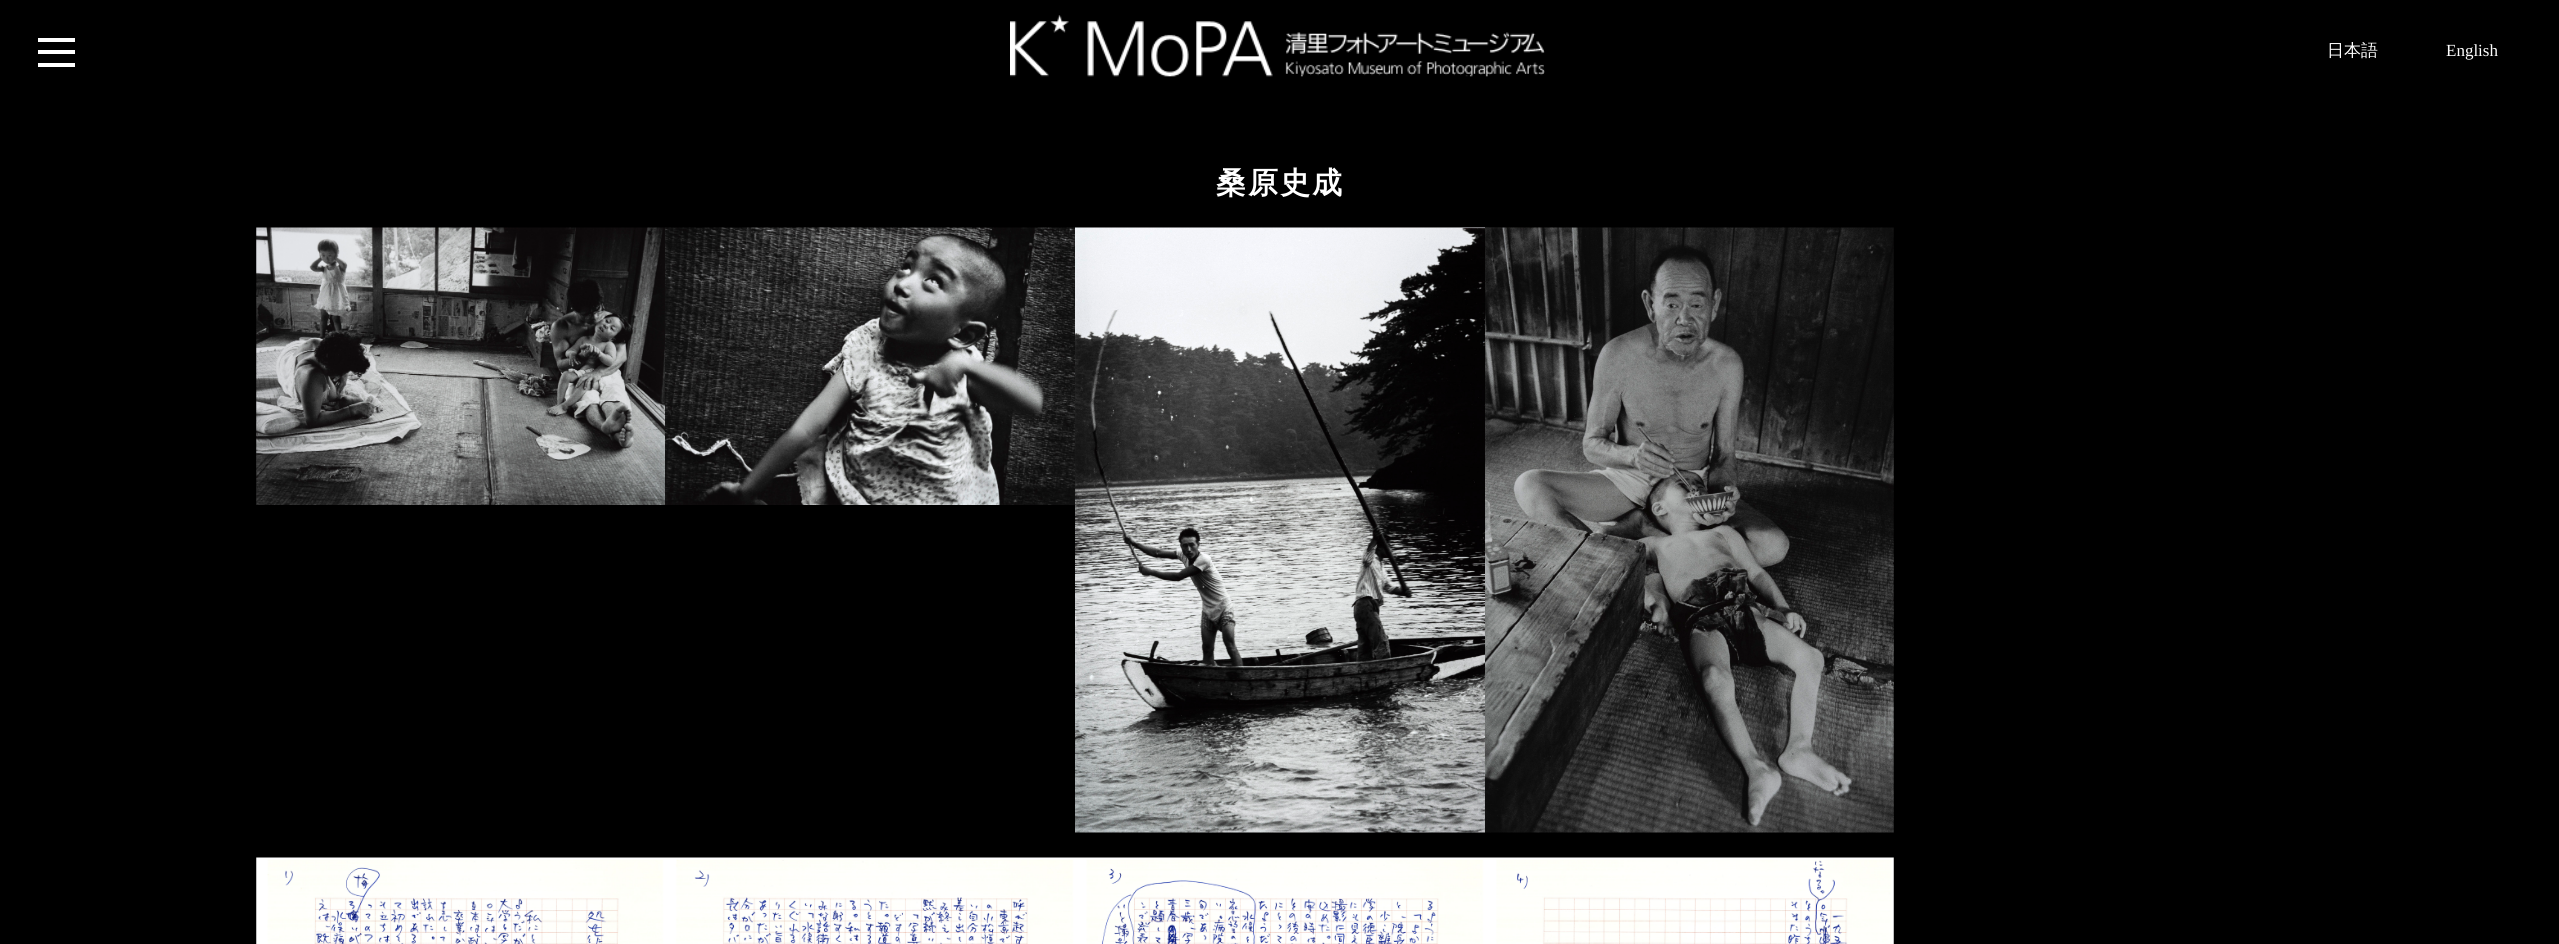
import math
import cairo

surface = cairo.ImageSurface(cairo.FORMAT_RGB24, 2559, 944)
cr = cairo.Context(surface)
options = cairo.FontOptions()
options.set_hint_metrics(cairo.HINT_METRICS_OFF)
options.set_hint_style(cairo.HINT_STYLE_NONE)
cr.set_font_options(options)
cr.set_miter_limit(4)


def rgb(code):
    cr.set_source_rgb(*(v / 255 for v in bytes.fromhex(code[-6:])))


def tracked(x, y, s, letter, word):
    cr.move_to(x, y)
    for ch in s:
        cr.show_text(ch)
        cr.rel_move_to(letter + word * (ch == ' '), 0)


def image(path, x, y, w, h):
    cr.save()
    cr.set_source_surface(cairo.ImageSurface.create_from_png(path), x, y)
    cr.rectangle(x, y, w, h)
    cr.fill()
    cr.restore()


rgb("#000000")
cr.paint()
for x, y, w, h, color in [
    (38, 38, 37, 4, "#ffffff"),
    (38, 50, 37, 4, "#ffffff"),
    (38, 63, 37, 4, "#ffffff"),
]:
    rgb(color)
    cr.rectangle(x, y, w, h)
    cr.fill()
image("img/1.png", 1010, 15, 535, 62)
image("img/2.png", 256, 227, 409, 278)
image("img/3.png", 665, 227, 410, 278)
image("img/4.png", 1075, 227, 410, 606)
image("img/5.png", 1485, 227, 409, 606)
image("img/6.png", 256, 857, 409, 87)
image("img/7.png", 665, 857, 410, 87)
image("img/8.png", 1075, 857, 410, 87)
image("img/9.png", 1485, 857, 409, 87)
cr.select_font_face("WenQuanYi Zen Hei Medium")
cr.set_font_size(17)
cr.move_to(2327, 56)
cr.show_text("日本語")
cr.select_font_face("Liberation Serif")
cr.move_to(2446, 56)
cr.show_text("English")
cr.select_font_face("WenQuanYi Zen Hei", cairo.FONT_SLANT_NORMAL, cairo.FONT_WEIGHT_BOLD)
cr.set_font_size(30)
tracked(1216, 193, "桑原史成", 2, 0)
surface.write_to_png("page.png")
